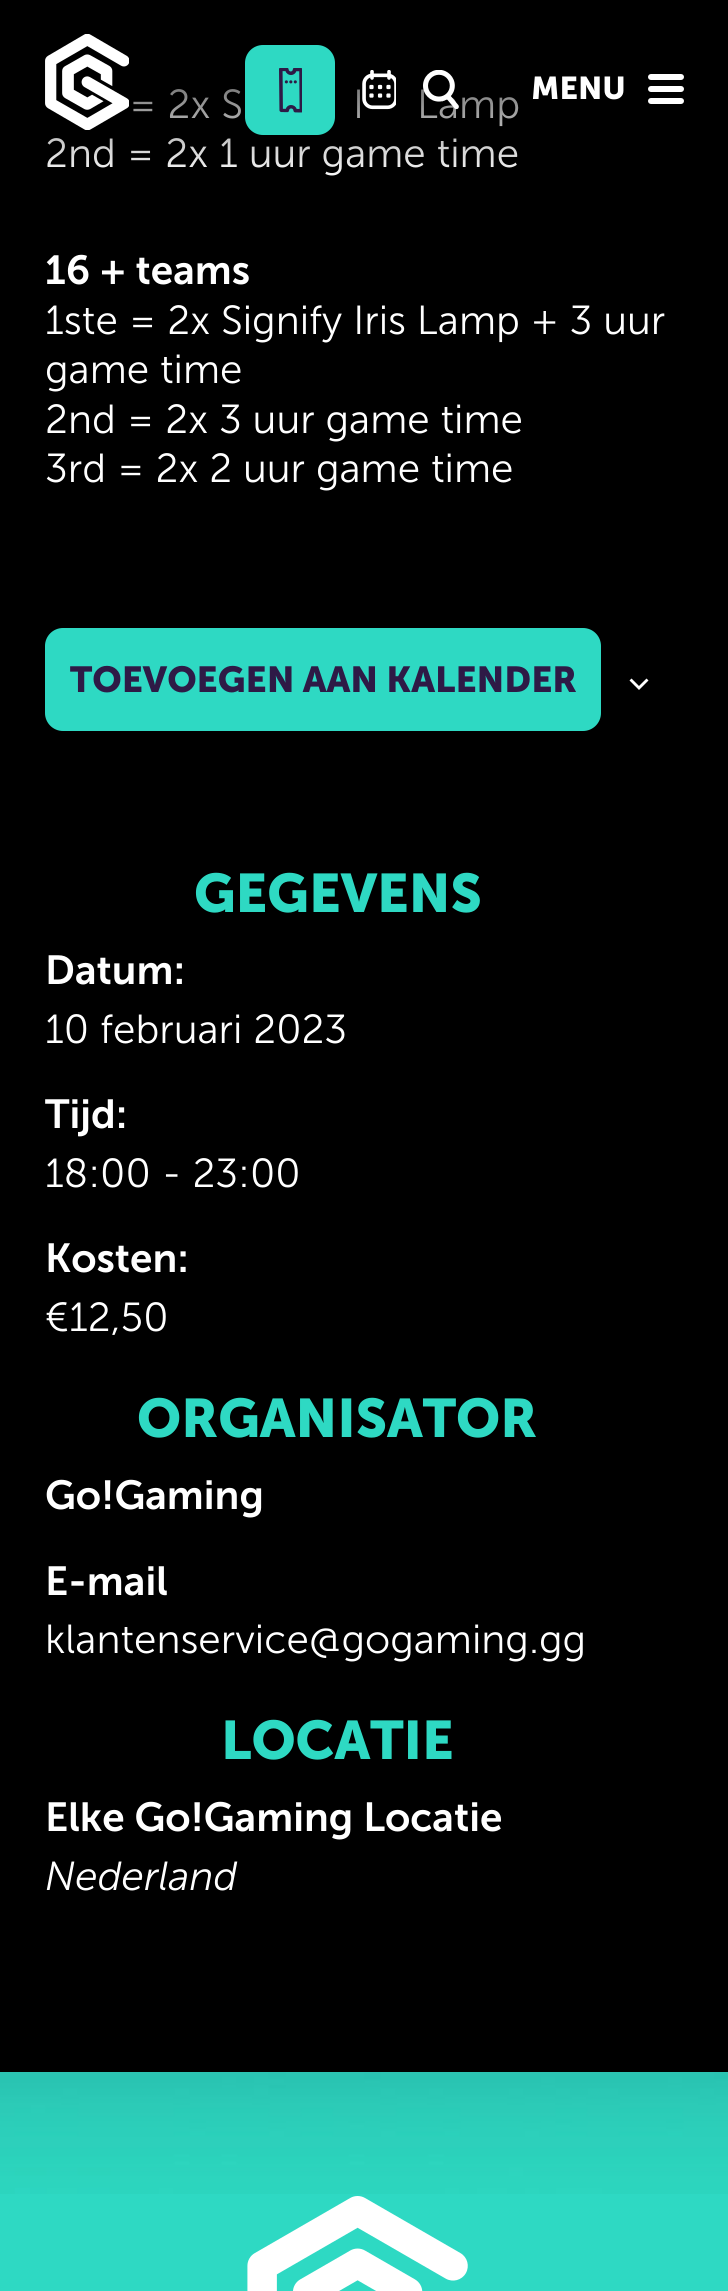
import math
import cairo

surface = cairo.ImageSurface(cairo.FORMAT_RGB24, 728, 2291)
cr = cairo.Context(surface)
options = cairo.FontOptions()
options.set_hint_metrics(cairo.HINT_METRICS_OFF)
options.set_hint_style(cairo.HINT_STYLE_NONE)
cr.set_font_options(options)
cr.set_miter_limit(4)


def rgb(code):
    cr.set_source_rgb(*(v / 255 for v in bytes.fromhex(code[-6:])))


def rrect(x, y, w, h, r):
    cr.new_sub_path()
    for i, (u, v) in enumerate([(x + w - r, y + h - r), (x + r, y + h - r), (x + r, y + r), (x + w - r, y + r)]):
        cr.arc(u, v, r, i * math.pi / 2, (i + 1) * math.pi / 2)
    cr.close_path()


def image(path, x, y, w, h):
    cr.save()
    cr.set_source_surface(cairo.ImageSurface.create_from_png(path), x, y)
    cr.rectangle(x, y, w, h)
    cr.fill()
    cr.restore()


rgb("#000000")
cr.paint()
rgb("#ffffff")
rrect(648, 98, 36, 6, 3)
cr.fill()
rrect(648, 86, 36, 6, 3)
cr.fill()
rrect(648, 74, 36, 6, 3)
cr.fill()
rgb("#2ed9c3")
rrect(46, 629, 554, 101, 17)
cr.fill_preserve()
cr.stroke()
rgb("#ffffff")
cr.set_fill_rule(cairo.FILL_RULE_EVEN_ODD)
cr.new_path()
cr.move_to(631.5, 678.5)
cr.line_to(639, 686)
cr.line_to(646.5, 678.5)
cr.line_to(648.5, 680.5)
cr.line_to(639, 690)
cr.line_to(629.5, 680.5)
cr.close_path()
cr.fill()
rgb("#2ed9c3")
cr.rectangle(0, 2194, 728, 97)
cr.fill()
image("img/5.png", 0, 2072, 728, 122)
image("img/6.png", 247, 2196, 221, 95)
cr.select_font_face("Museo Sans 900", cairo.FONT_SLANT_NORMAL, cairo.FONT_WEIGHT_BOLD)
cr.set_font_size(31.5)
rgb("#ffffff")
cr.move_to(531, 99)
cr.show_text("MENU")
cr.select_font_face("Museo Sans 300 Light")
cr.set_font_size(40.5)
for x, y, s in [
    (129, 118, "= 2x S"),
    (353, 118, "I"),
    (417, 118, "Lamp"),
    (45, 167, "2nd = 2x 1 uur game time"),
]:
    cr.move_to(x, y)
    cr.show_text(s)
gradient = cairo.LinearGradient(365, 0, 365, 180)
gradient.add_color_stop_rgba(0, 0, 0, 0, 1)
gradient.add_color_stop_rgba(1, 0, 0, 0, 0)
cr.set_source(gradient)
cr.rectangle(47, 89, 471, 87)
cr.fill()
image("img/4.png", 423, 70, 36, 40)
image("img/1.png", 45, 34, 84, 96)
image("img/3.png", 362, 70, 34, 40)
rgb("#2ed9c3")
rrect(245, 45, 90, 90, 18)
cr.fill()
image("img/2.png", 279, 68, 23, 45)
cr.select_font_face("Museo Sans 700 SemiBold")
rgb("#ffffff")
cr.move_to(45, 284)
cr.show_text("16 + teams")
cr.select_font_face("Museo Sans 300 Light")
for x, y, s in [
    (45, 334, "1ste = 2x Signify Iris Lamp + 3 uur"),
    (45, 383, "game time"),
    (45, 433, "2nd = 2x 3 uur game time"),
    (45, 482, "3rd = 2x 2 uur game time"),
]:
    cr.move_to(x, y)
    cr.show_text(s)
cr.select_font_face("Museo Sans 900", cairo.FONT_SLANT_NORMAL, cairo.FONT_WEIGHT_BOLD)
cr.set_font_size(36)
rgb("#2e1a46")
cr.move_to(70, 692)
cr.show_text("TOEVOEGEN AAN KALENDER")
cr.set_font_size(54)
rgb("#2ed9c3")
cr.move_to(194, 912)
cr.show_text("GEGEVENS")
cr.select_font_face("Museo Sans 700 SemiBold")
cr.set_font_size(40.5)
rgb("#ffffff")
cr.move_to(45, 984)
cr.show_text("Datum:")
cr.select_font_face("Museo Sans 300 Light")
cr.move_to(45, 1043)
cr.show_text("10 februari 2023")
cr.select_font_face("Museo Sans 700 SemiBold")
cr.move_to(45, 1128)
cr.show_text("Tijd:")
cr.select_font_face("Museo Sans 300 Light")
cr.move_to(45, 1187)
cr.show_text("18:00 - 23:00")
cr.select_font_face("Museo Sans 700 SemiBold")
cr.move_to(45, 1272)
cr.show_text("Kosten:")
cr.select_font_face("Museo Sans 300 Light")
cr.move_to(45, 1331)
cr.show_text("€12,50")
cr.select_font_face("Museo Sans 900", cairo.FONT_SLANT_NORMAL, cairo.FONT_WEIGHT_BOLD)
cr.set_font_size(54)
rgb("#2ed9c3")
cr.move_to(137, 1437)
cr.show_text("ORGANISATOR")
cr.select_font_face("Museo Sans 700 SemiBold")
cr.set_font_size(40.5)
rgb("#ffffff")
cr.move_to(45, 1509)
cr.show_text("Go!Gaming")
cr.move_to(45, 1595)
cr.show_text("E-mail")
cr.select_font_face("Museo Sans 300 Light")
cr.move_to(45, 1653)
cr.show_text("klantenservice@gogaming.gg")
cr.select_font_face("Museo Sans 900", cairo.FONT_SLANT_NORMAL, cairo.FONT_WEIGHT_BOLD)
cr.set_font_size(54)
rgb("#2ed9c3")
cr.move_to(221, 1759)
cr.show_text("LOCATIE")
cr.select_font_face("Museo Sans 700 SemiBold")
cr.set_font_size(40.5)
rgb("#ffffff")
cr.move_to(45, 1831)
cr.show_text("Elke Go!Gaming Locatie")
cr.select_font_face("Museo Sans 300 Light", cairo.FONT_SLANT_ITALIC)
cr.move_to(45, 1890)
cr.show_text("Nederland")
surface.write_to_png("page.png")
